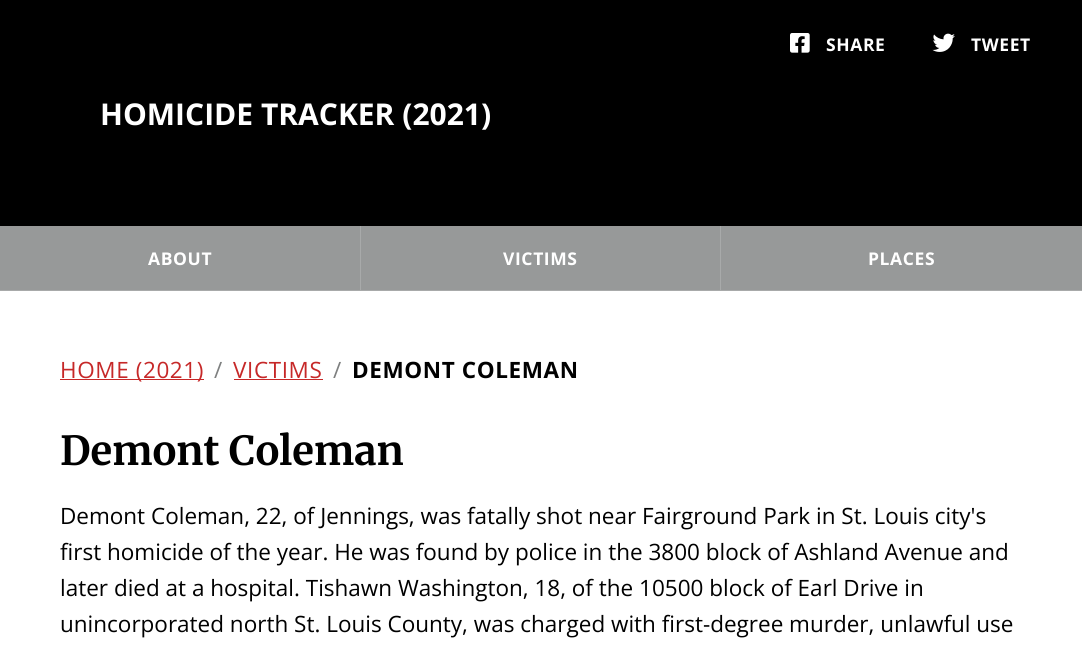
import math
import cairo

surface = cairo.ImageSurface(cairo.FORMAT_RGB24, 1082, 647)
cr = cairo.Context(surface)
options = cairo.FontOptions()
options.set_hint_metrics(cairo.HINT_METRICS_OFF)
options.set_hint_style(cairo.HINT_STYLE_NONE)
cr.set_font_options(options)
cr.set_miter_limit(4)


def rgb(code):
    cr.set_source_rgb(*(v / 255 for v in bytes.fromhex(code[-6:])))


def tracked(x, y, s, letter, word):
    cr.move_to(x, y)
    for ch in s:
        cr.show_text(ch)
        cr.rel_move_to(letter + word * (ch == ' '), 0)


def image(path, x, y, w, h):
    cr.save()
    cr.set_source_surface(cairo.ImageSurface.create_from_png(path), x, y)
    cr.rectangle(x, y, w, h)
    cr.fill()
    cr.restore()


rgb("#ffffff")
cr.paint()
rgb("#000000")
cr.rectangle(0, 0, 1082, 226)
cr.fill()
image("img/1.png", 790, 33, 20, 20)
image("img/2.png", 932, 33, 23, 19)
for x, y, w, h, color in [
    (0, 226, 360, 64, "#979999"),
    (360, 226, 1, 65, "#a8aaaa"),
    (0, 290, 361, 1, "#a8aaaa"),
    (361, 226, 359, 64, "#979999"),
    (720, 226, 1, 65, "#a8aaaa"),
    (361, 290, 721, 1, "#a8aaaa"),
    (721, 226, 361, 64, "#979999"),
    (60, 379, 144, 1, "#c62828"),
    (234, 379, 89, 1, "#c62828"),
]:
    rgb(color)
    cr.rectangle(x, y, w, h)
    cr.fill()
cr.select_font_face("Open Sans", cairo.FONT_SLANT_NORMAL, cairo.FONT_WEIGHT_BOLD)
cr.set_font_size(17.5)
rgb("#ffffff")
tracked(826, 51, "SHARE", 0.6, 0)
tracked(971, 51, "TWEET", 0.6, 0)
cr.set_font_size(30)
cr.move_to(100, 125)
cr.show_text("HOMICIDE TRACKER (2021)")
cr.set_font_size(17.5)
for x, y, s in [
    (148, 265, "ABOUT"),
    (503, 265, "VICTIMS"),
    (868, 265, "PLACES"),
]:
    tracked(x, y, s, 0.6, 0)
cr.select_font_face("Open Sans")
cr.set_font_size(22.5)
rgb("#c62828")
tracked(60, 378, "HOME (2021)", 0.6, 0)
rgb("#7e8080")
tracked(214, 378, "/", 0.6, 0)
rgb("#c62828")
tracked(233, 378, "VICTIMS", 0.6, 0)
rgb("#7e8080")
tracked(333, 378, "/", 0.6, 0)
cr.select_font_face("Open Sans", cairo.FONT_SLANT_NORMAL, cairo.FONT_WEIGHT_BOLD)
rgb("#000000")
tracked(352, 378, "DEMONT COLEMAN", 0.6, 0)
cr.select_font_face("Merriweather", cairo.FONT_SLANT_NORMAL, cairo.FONT_WEIGHT_BOLD)
cr.set_font_size(40)
cr.move_to(60, 465)
cr.show_text("Demont Coleman")
cr.select_font_face("Open Sans")
cr.set_font_size(22.5)
for x, y, s in [
    (60, 524, "Demont Coleman, 22, of Jennings, was fatally shot near Fairground Park in St. Louis city's"),
    (60, 560, "first homicide of the year. He was found by police in the 3800 block of Ashland Avenue and"),
    (60, 596, "later died at a hospital. Tishawn Washington, 18, of the 10500 block of Earl Drive in"),
    (60, 632, "unincorporated north St. Louis County, was charged with first-degree murder, unlawful use"),
]:
    cr.move_to(x, y)
    cr.show_text(s)
surface.write_to_png("page.png")
